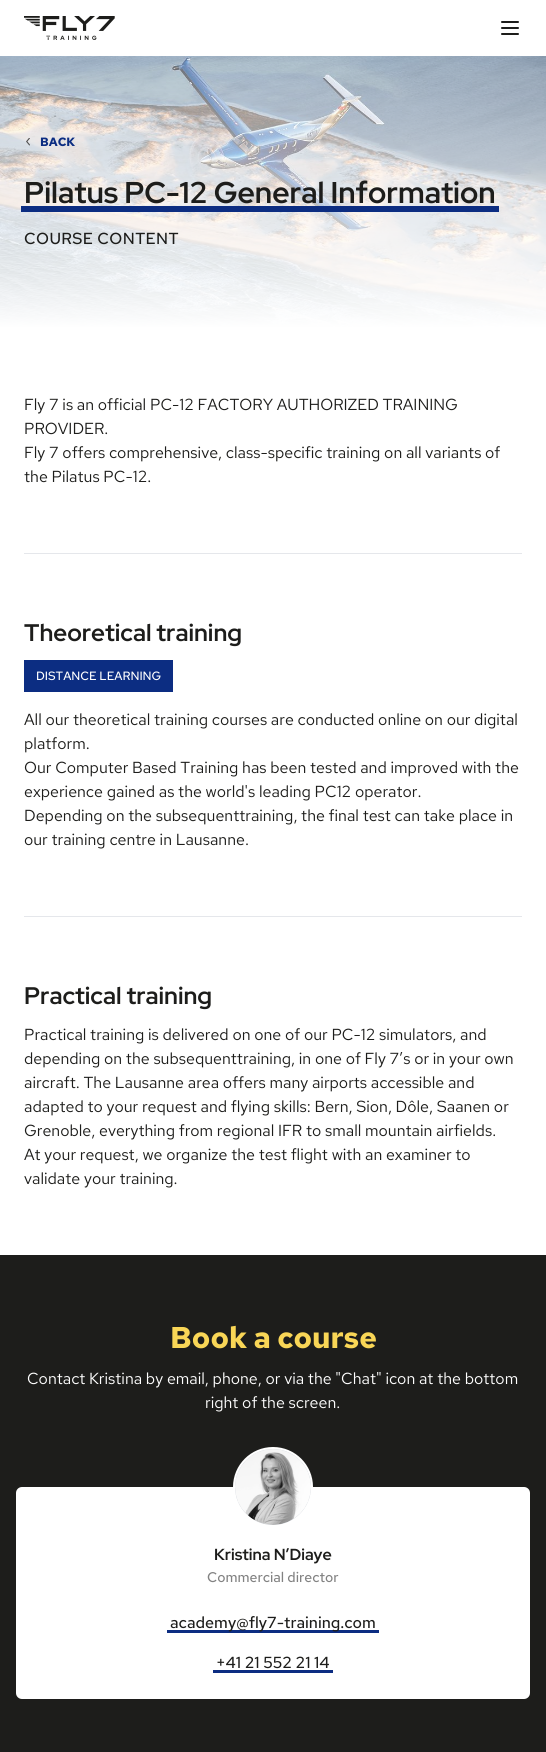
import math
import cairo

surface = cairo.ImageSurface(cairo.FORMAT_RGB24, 546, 1752)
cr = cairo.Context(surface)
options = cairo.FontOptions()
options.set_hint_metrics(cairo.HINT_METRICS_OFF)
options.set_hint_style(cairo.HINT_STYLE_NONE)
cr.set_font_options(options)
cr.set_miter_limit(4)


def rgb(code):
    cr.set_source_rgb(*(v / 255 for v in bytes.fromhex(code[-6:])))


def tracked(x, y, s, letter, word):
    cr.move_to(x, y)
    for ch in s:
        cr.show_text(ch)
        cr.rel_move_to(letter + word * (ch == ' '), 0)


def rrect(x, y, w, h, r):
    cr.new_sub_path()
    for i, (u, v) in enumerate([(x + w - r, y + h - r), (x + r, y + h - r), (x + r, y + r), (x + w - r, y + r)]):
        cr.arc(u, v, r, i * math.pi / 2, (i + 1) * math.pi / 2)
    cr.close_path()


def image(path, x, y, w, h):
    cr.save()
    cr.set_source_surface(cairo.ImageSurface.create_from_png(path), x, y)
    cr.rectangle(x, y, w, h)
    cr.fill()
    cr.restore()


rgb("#f6f7f9")
cr.paint()
rgb("#ffffff")
cr.rectangle(0, 0, 546, 56)
cr.fill()
image("img/1.png", 24, 16, 91, 24)
cr.new_path()
cr.move_to(502, 22)
cr.line_to(518, 22)
cr.move_to(502, 28)
cr.line_to(518, 28)
cr.move_to(502, 34)
cr.line_to(518, 34)
rgb("#1d1d1b")
cr.set_line_cap(cairo.LINE_CAP_ROUND)
cr.set_line_join(cairo.LINE_JOIN_ROUND)
cr.stroke()
image("img/2.png", 0, 56, 546, 271)
gradient = cairo.LinearGradient(273, 56, 273, 329)
gradient.add_color_stop_rgba(0, 1, 1, 1, 0)
gradient.add_color_stop_rgba(1, 1, 1, 1, 1)
cr.set_source(gradient)
cr.rectangle(0, 62, 546, 267)
cr.fill()
image("img/3.png", 26, 138, 4, 8)
for x, y, w, h, color in [
    (21, 206, 478, 6, "#0c2d82"),
    (0, 329, 546, 926, "#ffffff"),
    (24, 553, 498, 1, "#e5e7eb"),
    (24, 660, 149, 32, "#0c2d82"),
    (24, 916, 498, 1, "#e5e7eb"),
    (0, 1255, 546, 497, "#1d1d1b"),
]:
    rgb(color)
    cr.rectangle(x, y, w, h)
    cr.fill()
rgb("#ffffff")
rrect(16, 1487, 514, 212, 6)
cr.fill()
rgb("#d1d5db")
cr.arc(273, 1487, 39, 0, 2 * math.pi)
cr.fill_preserve()
rgb("#ffffff")
cr.set_line_cap(cairo.LINE_CAP_BUTT)
cr.set_line_join(cairo.LINE_JOIN_MITER)
cr.stroke()
image("img/4.png", 235, 1449, 76, 76)
rgb("#0c2d82")
cr.rectangle(167, 1630, 212, 3)
cr.fill()
cr.rectangle(213, 1670, 120, 3)
cr.fill()
cr.select_font_face("Red Hat Text", cairo.FONT_SLANT_NORMAL, cairo.FONT_WEIGHT_BOLD)
cr.set_font_size(12)
cr.move_to(40, 146)
cr.show_text("BACK")
cr.select_font_face("Red Hat Display", cairo.FONT_SLANT_NORMAL, cairo.FONT_WEIGHT_BOLD)
cr.set_font_size(30)
rgb("#1d1d1b")
cr.move_to(24, 203)
cr.show_text("Pilatus PC-12 General Information")
cr.select_font_face("Red Hat Text Medium")
cr.set_font_size(16)
tracked(24, 244, "COURSE CONTENT", 0.4, 0)
cr.select_font_face("Red Hat Text")
for x, y, s in [
    (24, 410, "Fly 7 is an official PC-12 FACTORY AUTHORIZED TRAINING"),
    (24, 434, "PROVIDER."),
    (24, 458, "Fly 7 offers comprehensive, class-specific training on all variants of"),
    (24, 482, "the Pilatus PC-12."),
]:
    cr.move_to(x, y)
    cr.show_text(s)
cr.select_font_face("Red Hat Display", cairo.FONT_SLANT_NORMAL, cairo.FONT_WEIGHT_BOLD)
cr.set_font_size(24)
cr.move_to(24, 641)
cr.show_text("Theoretical training")
cr.select_font_face("Red Hat Text Medium")
cr.set_font_size(12)
rgb("#ffffff")
cr.move_to(36, 680)
cr.show_text("DISTANCE LEARNING")
cr.select_font_face("Red Hat Text")
cr.set_font_size(16)
rgb("#1d1d1b")
for x, y, s in [
    (24, 725, "All our theoretical training courses are conducted online on our digital"),
    (24, 749, "platform."),
    (24, 773, "Our Computer Based Training has been tested and improved with the"),
    (24, 797, "experience gained as the world's leading PC12 operator."),
    (24, 821, "Depending on the subsequenttraining, the final test can take place in"),
    (24, 845, "our training centre in Lausanne."),
]:
    cr.move_to(x, y)
    cr.show_text(s)
cr.select_font_face("Red Hat Display", cairo.FONT_SLANT_NORMAL, cairo.FONT_WEIGHT_BOLD)
cr.set_font_size(24)
cr.move_to(24, 1004)
cr.show_text("Practical training")
cr.select_font_face("Red Hat Text")
cr.set_font_size(16)
for x, y, s in [
    (24, 1040, "Practical training is delivered on one of our PC-12 simulators, and"),
    (24, 1064, "depending on the subsequenttraining, in one of Fly 7’s or in your own"),
    (24, 1088, "aircraft. The Lausanne area offers many airports accessible and"),
    (24, 1112, "adapted to your request and flying skills: Bern, Sion, Dôle, Saanen or"),
    (24, 1136, "Grenoble, everything from regional IFR to small mountain airfields."),
    (24, 1160, "At your request, we organize the test flight with an examiner to"),
    (24, 1184, "validate your training."),
]:
    cr.move_to(x, y)
    cr.show_text(s)
cr.select_font_face("Red Hat Text", cairo.FONT_SLANT_NORMAL, cairo.FONT_WEIGHT_BOLD)
cr.set_font_size(30)
rgb("#f9d656")
cr.move_to(170, 1348)
cr.show_text("Book a course")
cr.select_font_face("Red Hat Text")
cr.set_font_size(16)
rgb("#ffffff")
cr.move_to(27, 1384)
cr.show_text("Contact Kristina by email, phone, or via the \"Chat\" icon at the bottom")
cr.move_to(205, 1408)
cr.show_text("right of the screen.")
cr.select_font_face("Red Hat Display", cairo.FONT_SLANT_NORMAL, cairo.FONT_WEIGHT_BOLD)
rgb("#1d1d1b")
cr.move_to(214, 1560)
cr.show_text("Kristina N’Diaye")
cr.select_font_face("Red Hat Text Medium")
cr.set_font_size(14)
rgb("#828282")
cr.move_to(207, 1582)
cr.show_text("Commercial director")
cr.set_font_size(16)
rgb("#1d1d1b")
cr.move_to(170, 1628)
cr.show_text("academy@fly7-training.com")
cr.move_to(216, 1668)
cr.show_text("+41 21 552 21 14")
surface.write_to_png("page.png")
